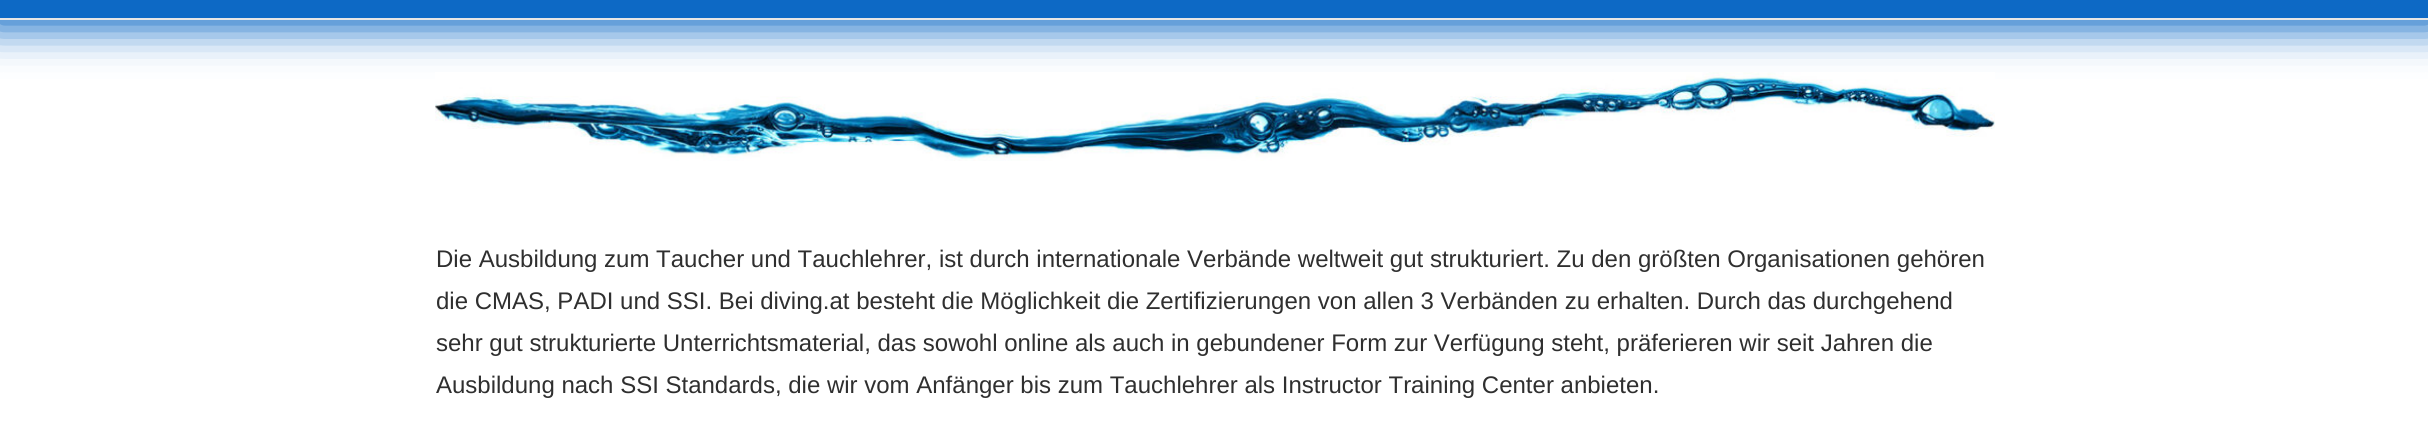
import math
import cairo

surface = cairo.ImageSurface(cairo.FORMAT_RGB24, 2428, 444)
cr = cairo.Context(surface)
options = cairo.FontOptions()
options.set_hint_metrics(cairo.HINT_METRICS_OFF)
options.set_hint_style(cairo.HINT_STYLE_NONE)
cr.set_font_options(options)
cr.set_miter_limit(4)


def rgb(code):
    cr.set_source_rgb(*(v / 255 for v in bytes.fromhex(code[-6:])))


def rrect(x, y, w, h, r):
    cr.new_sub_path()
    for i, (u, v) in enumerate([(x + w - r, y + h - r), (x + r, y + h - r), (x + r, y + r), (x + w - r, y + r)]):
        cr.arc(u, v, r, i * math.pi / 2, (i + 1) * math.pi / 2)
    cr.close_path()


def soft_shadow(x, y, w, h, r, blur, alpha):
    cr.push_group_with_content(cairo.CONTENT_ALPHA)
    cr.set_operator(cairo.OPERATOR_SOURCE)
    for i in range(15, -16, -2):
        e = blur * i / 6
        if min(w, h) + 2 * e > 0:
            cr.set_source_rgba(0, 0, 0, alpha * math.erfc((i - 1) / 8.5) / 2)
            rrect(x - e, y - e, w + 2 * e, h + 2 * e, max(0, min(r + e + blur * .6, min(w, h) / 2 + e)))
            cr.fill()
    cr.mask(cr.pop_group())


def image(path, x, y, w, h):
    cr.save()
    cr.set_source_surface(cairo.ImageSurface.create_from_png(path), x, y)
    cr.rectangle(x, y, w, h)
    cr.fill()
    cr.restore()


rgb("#ffffff")
cr.paint()
rgb("#0d69c5")
soft_shadow(-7, -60, 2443, 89, 0, 20, 1)
rgb("#0d69c5")
cr.rectangle(0, 0, 2428, 18)
cr.fill()
rgb("#e6e6e6")
cr.rectangle(0, 18, 2428, 2)
cr.fill()
image("img/1.png", 435, 72, 1560, 89)
cr.select_font_face("Liberation Sans")
cr.set_font_size(24)
rgb("#2f2f2f")
for x, y, s in [
    (436, 267, "Die Ausbildung zum Taucher und Tauchlehrer, ist durch internationale Verbände weltweit gut strukturiert. Zu den größten Organisationen gehören"),
    (436, 309, "die CMAS, PADI und SSI. Bei diving.at besteht die Möglichkeit die Zertifizierungen von allen 3 Verbänden zu erhalten. Durch das durchgehend"),
    (436, 351, "sehr gut strukturierte Unterrichtsmaterial, das sowohl online als auch in gebundener Form zur Verfügung steht, präferieren wir seit Jahren die"),
    (436, 393, "Ausbildung nach SSI Standards, die wir vom Anfänger bis zum Tauchlehrer als Instructor Training Center anbieten."),
]:
    cr.move_to(x, y)
    cr.show_text(s)
surface.write_to_png("page.png")
